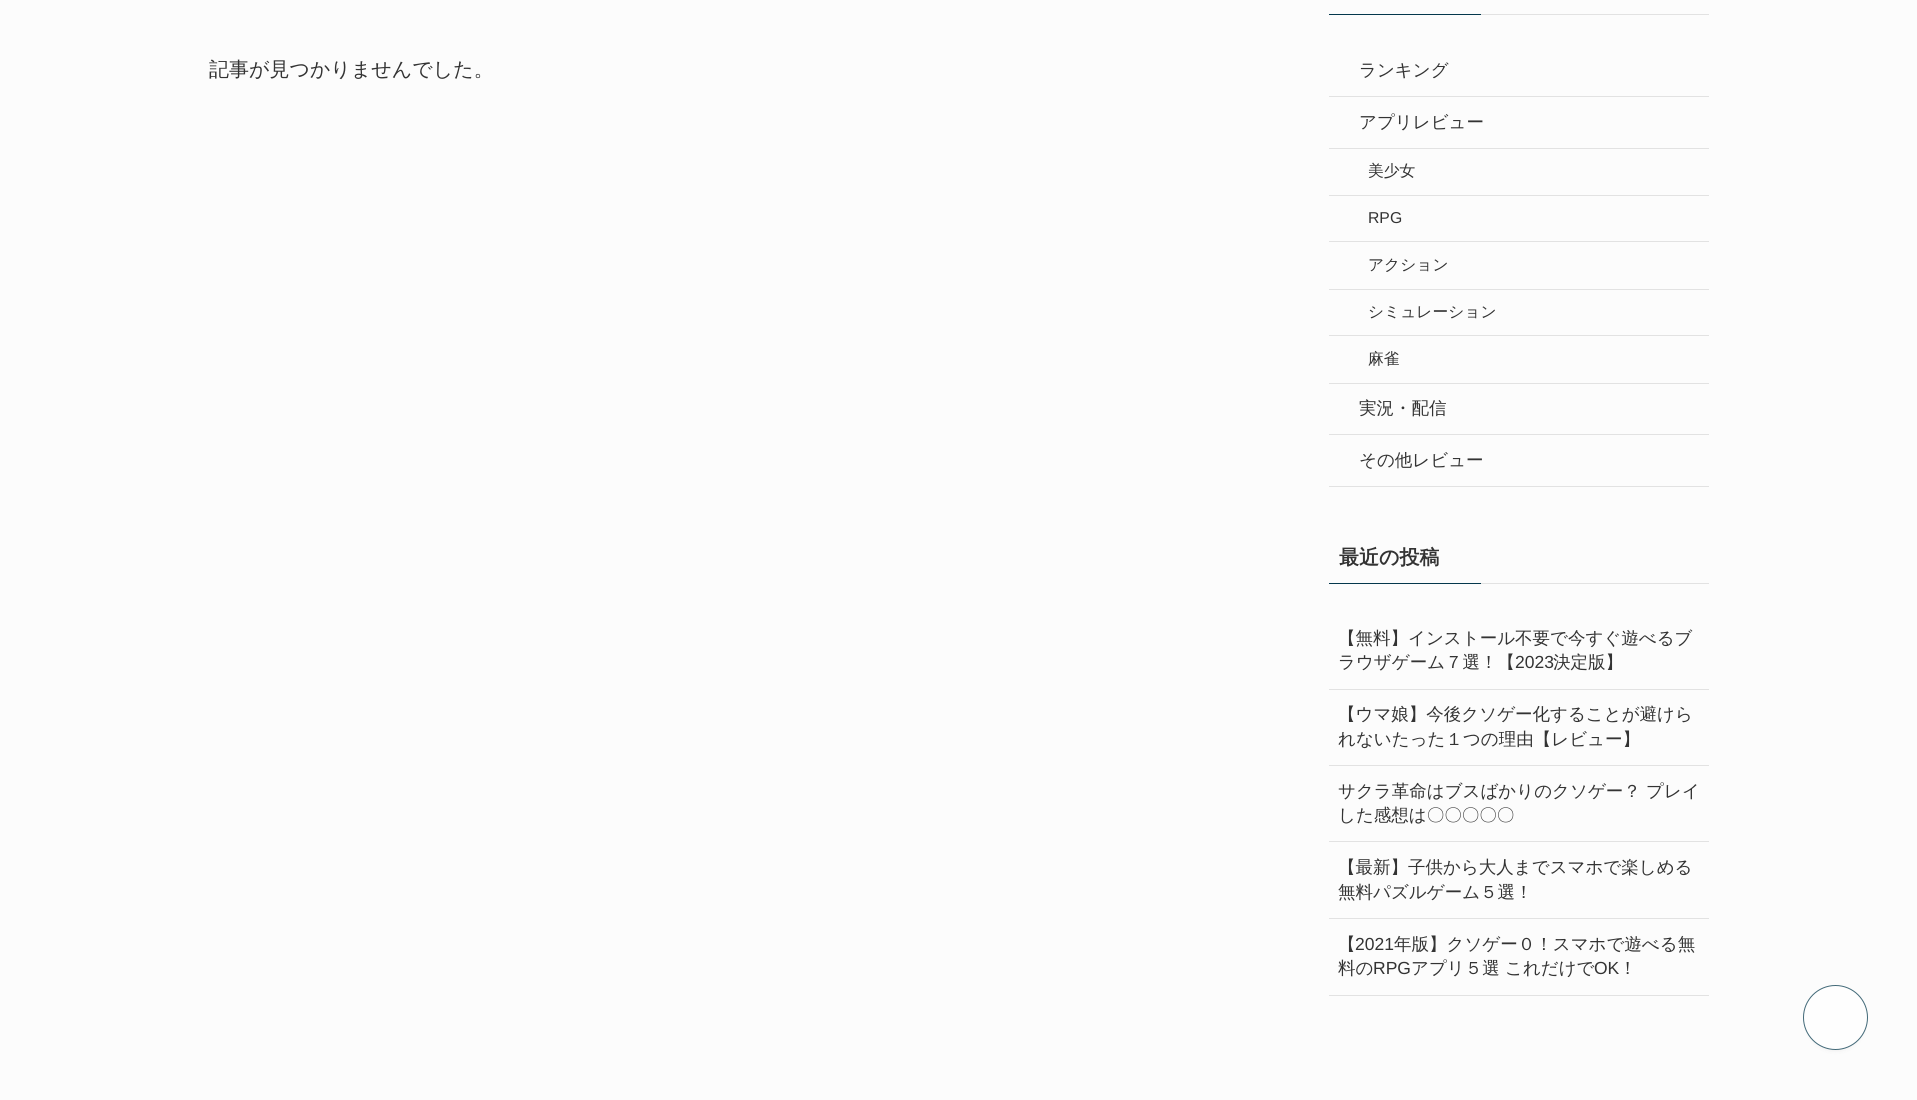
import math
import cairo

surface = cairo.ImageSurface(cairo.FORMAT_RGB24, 1917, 1100)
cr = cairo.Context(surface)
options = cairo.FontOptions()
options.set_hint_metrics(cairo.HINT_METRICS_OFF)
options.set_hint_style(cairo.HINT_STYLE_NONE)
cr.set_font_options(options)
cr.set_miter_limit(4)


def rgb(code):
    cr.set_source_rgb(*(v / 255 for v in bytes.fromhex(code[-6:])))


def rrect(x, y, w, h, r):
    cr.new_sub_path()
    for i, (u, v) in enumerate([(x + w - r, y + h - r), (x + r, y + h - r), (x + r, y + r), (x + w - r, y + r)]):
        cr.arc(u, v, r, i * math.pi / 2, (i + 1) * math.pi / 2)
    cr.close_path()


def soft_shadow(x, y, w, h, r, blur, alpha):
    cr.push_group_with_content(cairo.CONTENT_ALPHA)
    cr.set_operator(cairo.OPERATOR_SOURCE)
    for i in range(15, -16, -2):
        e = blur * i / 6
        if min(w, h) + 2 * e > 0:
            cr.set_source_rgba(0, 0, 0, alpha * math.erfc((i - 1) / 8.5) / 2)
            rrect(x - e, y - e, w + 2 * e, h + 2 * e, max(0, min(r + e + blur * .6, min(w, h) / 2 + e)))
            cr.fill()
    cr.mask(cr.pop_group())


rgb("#fcfcfc")
cr.paint()
for x, y, w, h, color in [
    (1329, 14, 152, 1, "#04384c"),
    (1481, 14, 228, 1, "#e2e2e2"),
    (1329, 96, 380, 1, "#e2e2e2"),
    (1329, 148, 380, 1, "#e2e2e2"),
    (1329, 195, 380, 1, "#e2e2e2"),
    (1329, 241, 380, 1, "#e2e2e2"),
    (1329, 289, 380, 1, "#e2e2e2"),
    (1329, 335, 380, 1, "#e2e2e2"),
    (1329, 383, 380, 1, "#e2e2e2"),
    (1329, 434, 380, 1, "#e2e2e2"),
    (1329, 486, 380, 1, "#e2e2e2"),
    (1329, 583, 152, 1, "#04384c"),
    (1481, 583, 228, 1, "#e2e2e2"),
    (1329, 689, 380, 1, "#e2e2e2"),
    (1329, 765, 380, 1, "#e2e2e2"),
    (1329, 841, 380, 1, "#e2e2e2"),
    (1329, 918, 380, 1, "#e2e2e2"),
    (1329, 995, 380, 1, "#e2e2e2"),
]:
    rgb(color)
    cr.rectangle(x, y, w, h)
    cr.fill()
rgb("#3f3f3f")
soft_shadow(1808, 995, 55, 55, 27.5, 2.5, 0.1)
rgb("#fefefe")
cr.arc(1835.5, 1017.5, 32, 0, 2 * math.pi)
cr.fill_preserve()
rgb("#426978")
cr.set_line_width(1)
cr.stroke()
cr.select_font_face("WenQuanYi Zen Hei Medium")
cr.set_font_size(20)
rgb("#333333")
cr.move_to(209, 76)
cr.show_text("記事が見つかりませんでした。")
cr.set_font_size(17.5)
cr.move_to(1359, 76)
cr.show_text("ランキング")
cr.move_to(1359, 128)
cr.show_text("アプリレビュー")
cr.set_font_size(15.75)
cr.move_to(1368, 176)
cr.show_text("美少女")
cr.select_font_face("Liberation Sans")
cr.move_to(1368, 223)
cr.show_text("RPG")
cr.select_font_face("WenQuanYi Zen Hei Medium")
for x, y, s in [
    (1368, 270, "アクション"),
    (1368, 317, "シミュレーション"),
    (1368, 364, "麻雀"),
]:
    cr.move_to(x, y)
    cr.show_text(s)
cr.set_font_size(17.5)
cr.move_to(1359, 414)
cr.show_text("実況・配信")
cr.move_to(1359, 466)
cr.show_text("その他レビュー")
cr.select_font_face("WenQuanYi Zen Hei", cairo.FONT_SLANT_NORMAL, cairo.FONT_WEIGHT_BOLD)
cr.set_font_size(20)
cr.move_to(1339, 564)
cr.show_text("最近の投稿")
cr.select_font_face("WenQuanYi Zen Hei Medium")
cr.set_font_size(17.5)
cr.move_to(1338, 644)
cr.show_text("【無料】インストール不要で今すぐ遊べるブ")
cr.move_to(1338, 668)
cr.show_text("ラウザゲーム７選！【")
cr.select_font_face("Liberation Sans")
cr.move_to(1515, 668)
cr.show_text("2023")
cr.select_font_face("WenQuanYi Zen Hei Medium")
for x, y, s in [
    (1553, 668, "決定版】"),
    (1338, 720, "【ウマ娘】今後クソゲー化することが避けら"),
    (1338, 745, "れないたった１つの理由【レビュー】"),
    (1338, 797, "サクラ革命はブスばかりのクソゲー？ プレイ"),
    (1338, 821, "した感想は〇〇〇〇〇"),
    (1338, 873, "【最新】子供から大人までスマホで楽しめる"),
    (1338, 898, "無料パズルゲーム５選！"),
    (1338, 950, "【"),
]:
    cr.move_to(x, y)
    cr.show_text(s)
cr.select_font_face("Liberation Sans")
cr.move_to(1355, 950)
cr.show_text("2021")
cr.select_font_face("WenQuanYi Zen Hei Medium")
cr.move_to(1394, 950)
cr.show_text("年版】クソゲー０！スマホで遊べる無")
cr.move_to(1338, 974)
cr.show_text("料の")
cr.select_font_face("Liberation Sans")
cr.move_to(1373, 974)
cr.show_text("RPG")
cr.select_font_face("WenQuanYi Zen Hei Medium")
cr.move_to(1411, 974)
cr.show_text("アプリ５選 これだけで")
cr.select_font_face("Liberation Sans")
cr.move_to(1594, 974)
cr.show_text("OK")
cr.select_font_face("WenQuanYi Zen Hei Medium")
cr.move_to(1619, 974)
cr.show_text("！")
surface.write_to_png("page.png")
